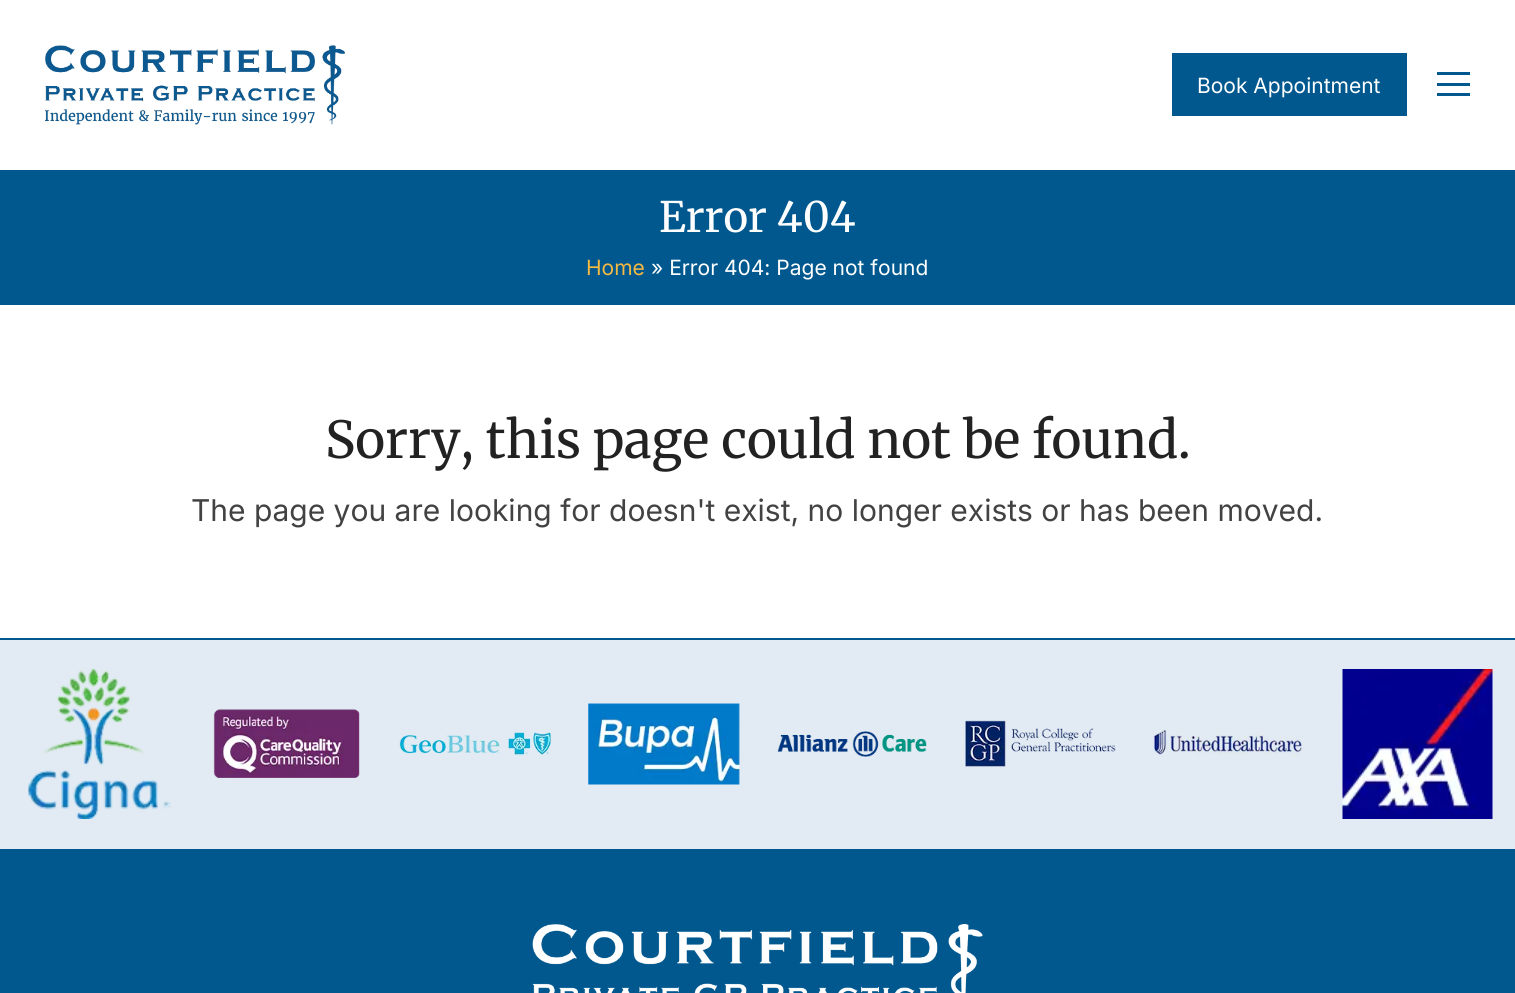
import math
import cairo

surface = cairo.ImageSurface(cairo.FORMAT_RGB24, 1515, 993)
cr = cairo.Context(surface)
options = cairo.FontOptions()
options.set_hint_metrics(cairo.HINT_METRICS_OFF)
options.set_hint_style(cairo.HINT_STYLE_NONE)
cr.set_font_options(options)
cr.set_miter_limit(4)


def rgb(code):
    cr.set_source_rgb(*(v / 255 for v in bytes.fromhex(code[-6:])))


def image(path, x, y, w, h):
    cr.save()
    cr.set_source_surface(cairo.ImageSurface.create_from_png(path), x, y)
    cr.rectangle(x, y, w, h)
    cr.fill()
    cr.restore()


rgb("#ffffff")
cr.paint()
image("img/1.png", 45, 45, 300, 80)
for x, y, w, h, color in [
    (1172, 53, 235, 63, "#00588f"),
    (1437, 83, 33, 3, "#00588f"),
    (1437, 72, 33, 3, "#00588f"),
    (1437, 93, 33, 3, "#00588f"),
    (0, 170, 1515, 135, "#00588f"),
    (0, 849, 1515, 144, "#00588f"),
    (0, 640, 1515, 209, "#e2ebf3"),
    (0, 638, 1515, 2, "#00588f"),
]:
    rgb(color)
    cr.rectangle(x, y, w, h)
    cr.fill()
image("img/2.png", 28, 669, 143, 150)
image("img/3.png", 213, 709, 147, 69)
image("img/4.png", 399, 732, 152, 23)
image("img/5.png", 588, 703, 152, 82)
image("img/6.png", 777, 731, 150, 26)
image("img/7.png", 965, 720, 151, 47)
image("img/8.png", 1153, 728, 149, 29)
image("img/9.png", 1342, 669, 151, 150)
image("img/10.png", 532, 924, 451, 69)
cr.select_font_face("Inter")
cr.set_font_size(21)
rgb("#ffffff")
cr.move_to(1197, 93)
cr.show_text("Book Appointment")
cr.select_font_face("Merriweather")
cr.set_font_size(42)
cr.move_to(659, 232)
cr.show_text("Error 404")
cr.select_font_face("Inter")
cr.set_font_size(21)
rgb("#f4b942")
cr.move_to(586, 275)
cr.show_text("Home")
rgb("#ffffff")
cr.move_to(651, 275)
cr.show_text("» Error 404: Page not found")
cr.select_font_face("Merriweather")
cr.set_font_size(51)
rgb("#222222")
cr.move_to(325, 458)
cr.show_text("Sorry, this page could not be found.")
cr.select_font_face("Inter")
cr.set_font_size(30)
rgb("#424242")
cr.move_to(191, 521)
cr.show_text("The page you are looking for doesn't exist, no longer exists or has been moved.")
surface.write_to_png("page.png")
